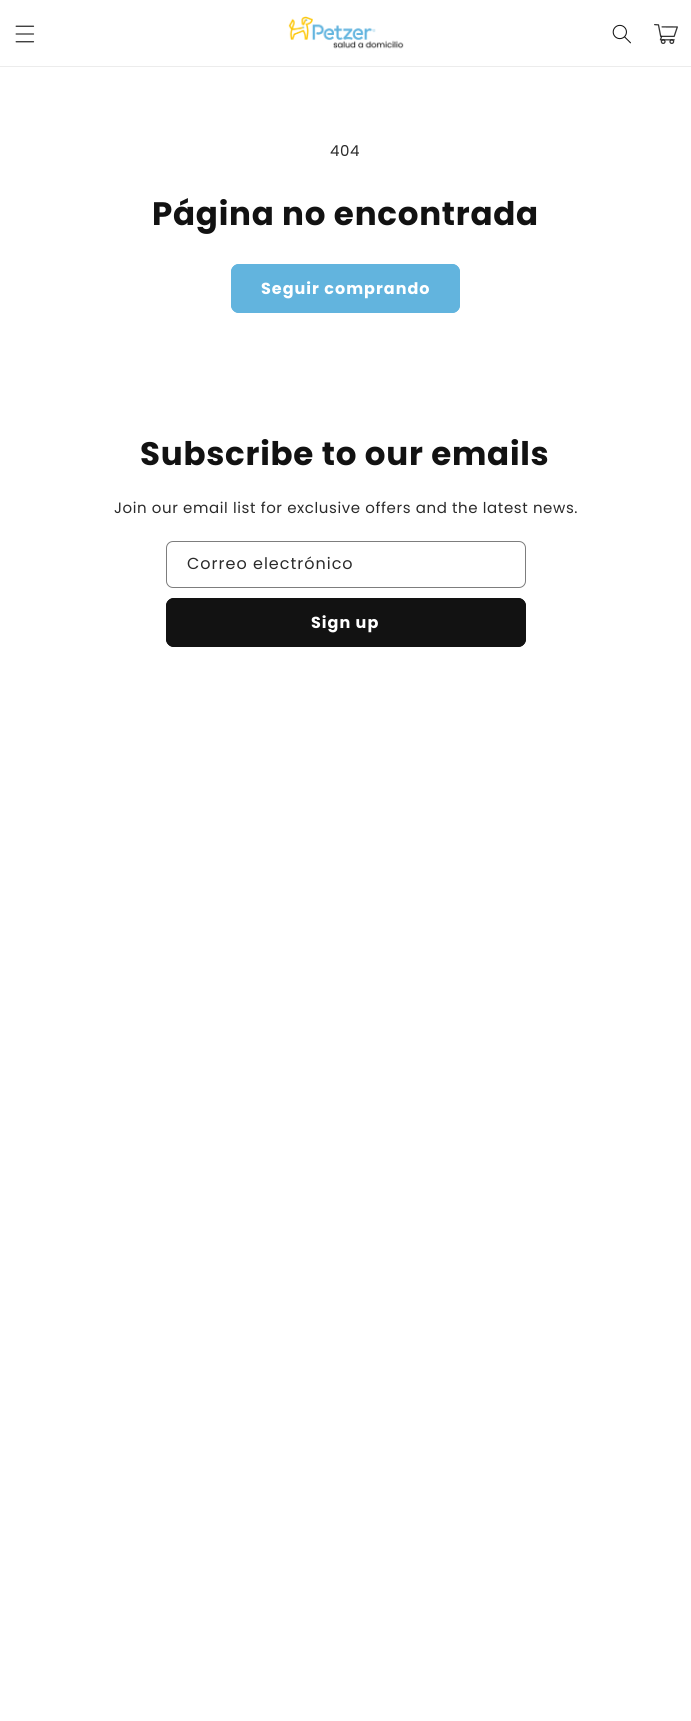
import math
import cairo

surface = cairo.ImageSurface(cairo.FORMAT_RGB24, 691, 1721)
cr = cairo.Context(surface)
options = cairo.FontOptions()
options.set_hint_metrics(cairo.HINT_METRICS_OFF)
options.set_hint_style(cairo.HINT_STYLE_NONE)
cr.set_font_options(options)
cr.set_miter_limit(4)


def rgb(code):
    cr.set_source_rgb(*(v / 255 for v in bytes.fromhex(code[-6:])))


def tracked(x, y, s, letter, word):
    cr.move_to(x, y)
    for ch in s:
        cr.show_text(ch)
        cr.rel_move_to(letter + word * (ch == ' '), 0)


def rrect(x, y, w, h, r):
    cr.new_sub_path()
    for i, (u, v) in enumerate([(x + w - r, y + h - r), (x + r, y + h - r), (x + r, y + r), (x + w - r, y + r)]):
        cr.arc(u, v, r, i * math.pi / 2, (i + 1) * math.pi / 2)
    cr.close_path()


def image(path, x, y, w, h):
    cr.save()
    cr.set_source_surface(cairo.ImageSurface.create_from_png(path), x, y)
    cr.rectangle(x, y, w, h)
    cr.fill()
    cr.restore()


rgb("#ffffff")
cr.paint()
rgb("#ececec")
cr.rectangle(0, 66, 691, 1)
cr.fill()
image("img/1.png", 15, 25, 20, 18)
image("img/2.png", 288, 16, 116, 33)
image("img/3.png", 612, 24, 19, 20)
image("img/4.png", 654, 24, 24, 20)
rgb("#62b4de")
rrect(231, 264, 229, 49, 8)
cr.fill()
rrect(232, 265, 227, 47, 7)
cr.stroke()
rrect(166.5, 541.5, 359, 46, 6.5)
rgb("#7d7d7d")
cr.set_line_width(1)
cr.stroke()
rgb("#121212")
rrect(166, 598, 360, 49, 8)
cr.fill()
rrect(167, 599, 358, 47, 7)
cr.set_line_width(2)
cr.stroke()
cr.select_font_face("Poppins")
cr.set_font_size(15)
rgb("#2a2a2a")
tracked(330, 156, "404", 0.6, 0)
cr.select_font_face("Poppins", cairo.FONT_SLANT_NORMAL, cairo.FONT_WEIGHT_BOLD)
cr.set_font_size(32.5)
rgb("#121212")
tracked(152, 225, "Página no encontrada", 0.75, 0)
cr.set_font_size(16)
rgb("#ffffff")
tracked(261, 294, "Seguir comprando", 1, 0)
cr.set_font_size(32.5)
rgb("#121212")
tracked(140, 465, "Subscribe to our emails", 0.75, 0)
cr.select_font_face("Poppins")
cr.set_font_size(15)
rgb("#2a2a2a")
tracked(114, 513, "Join our email list for exclusive offers and the latest news.", 0.6, 0)
cr.set_font_size(16)
tracked(187, 569, "Correo electrónico", 1, 0)
cr.select_font_face("Poppins", cairo.FONT_SLANT_NORMAL, cairo.FONT_WEIGHT_BOLD)
rgb("#ffffff")
tracked(311, 628, "Sign up", 1, 0)
surface.write_to_png("page.png")
